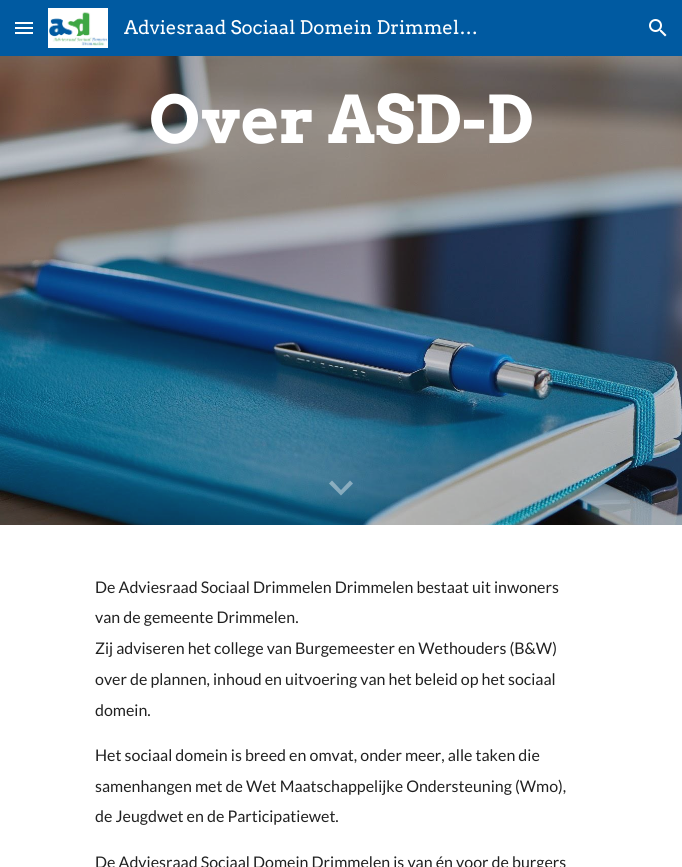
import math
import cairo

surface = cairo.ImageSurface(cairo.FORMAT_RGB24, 682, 867)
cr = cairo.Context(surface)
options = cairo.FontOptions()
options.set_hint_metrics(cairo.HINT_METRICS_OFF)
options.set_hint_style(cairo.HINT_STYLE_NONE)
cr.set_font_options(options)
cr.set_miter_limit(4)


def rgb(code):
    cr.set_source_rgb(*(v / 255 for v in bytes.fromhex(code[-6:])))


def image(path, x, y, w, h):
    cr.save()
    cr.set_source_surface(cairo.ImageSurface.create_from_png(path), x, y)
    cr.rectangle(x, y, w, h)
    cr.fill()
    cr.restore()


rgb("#ffffff")
cr.paint()
for x, y, w, h, color in [
    (0, 0, 682, 56, "#005aa1"),
    (15, 22, 18, 2, "#ffffff"),
    (15, 27, 18, 2, "#ffffff"),
    (15, 32, 18, 2, "#ffffff"),
]:
    rgb(color)
    cr.rectangle(x, y, w, h)
    cr.fill()
image("img/1.png", 48, 8, 60, 40)
image("img/2.png", 649, 19, 18, 18)
image("img/3.png", 0, 56, 682, 469)
cr.set_source_rgba(1, 1, 1, 0.4)
cr.new_path()
cr.move_to(332, 480.5)
cr.line_to(341, 490)
cr.line_to(350, 480.5)
cr.line_to(353, 483.5)
cr.line_to(341, 495.5)
cr.line_to(329, 483.5)
cr.close_path()
cr.fill()
cr.select_font_face("Arvo")
cr.set_font_size(18.7)
rgb("#ffffff")
cr.move_to(124, 34)
cr.show_text("Adviesraad Sociaal Domein Drimmel…")
cr.select_font_face("Arvo", cairo.FONT_SLANT_NORMAL, cairo.FONT_WEIGHT_BOLD)
cr.set_font_size(65.5)
cr.move_to(149, 143)
cr.show_text("Over ASD-D")
cr.select_font_face("Lato")
cr.set_font_size(16)
rgb("#212121")
for x, y, s in [
    (95, 593, "De Adviesraad Sociaal Drimmelen Drimmelen bestaat uit inwoners"),
    (95, 623, "van de gemeente Drimmelen."),
    (95, 654, "Zij adviseren het college van Burgemeester en Wethouders (B&W)"),
    (95, 685, "over de plannen, inhoud en uitvoering van het beleid op het sociaal"),
    (95, 716, "domein."),
    (95, 761, "Het sociaal domein is breed en omvat, onder meer, alle taken die"),
    (95, 792, "samenhangen met de Wet Maatschappelijke Ondersteuning (Wmo),"),
    (95, 822, "de Jeugdwet en de Participatiewet."),
    (95, 868, "De Adviesraad Sociaal Domein Drimmelen is van én voor de burgers"),
]:
    cr.move_to(x, y)
    cr.show_text(s)
surface.write_to_png("page.png")
